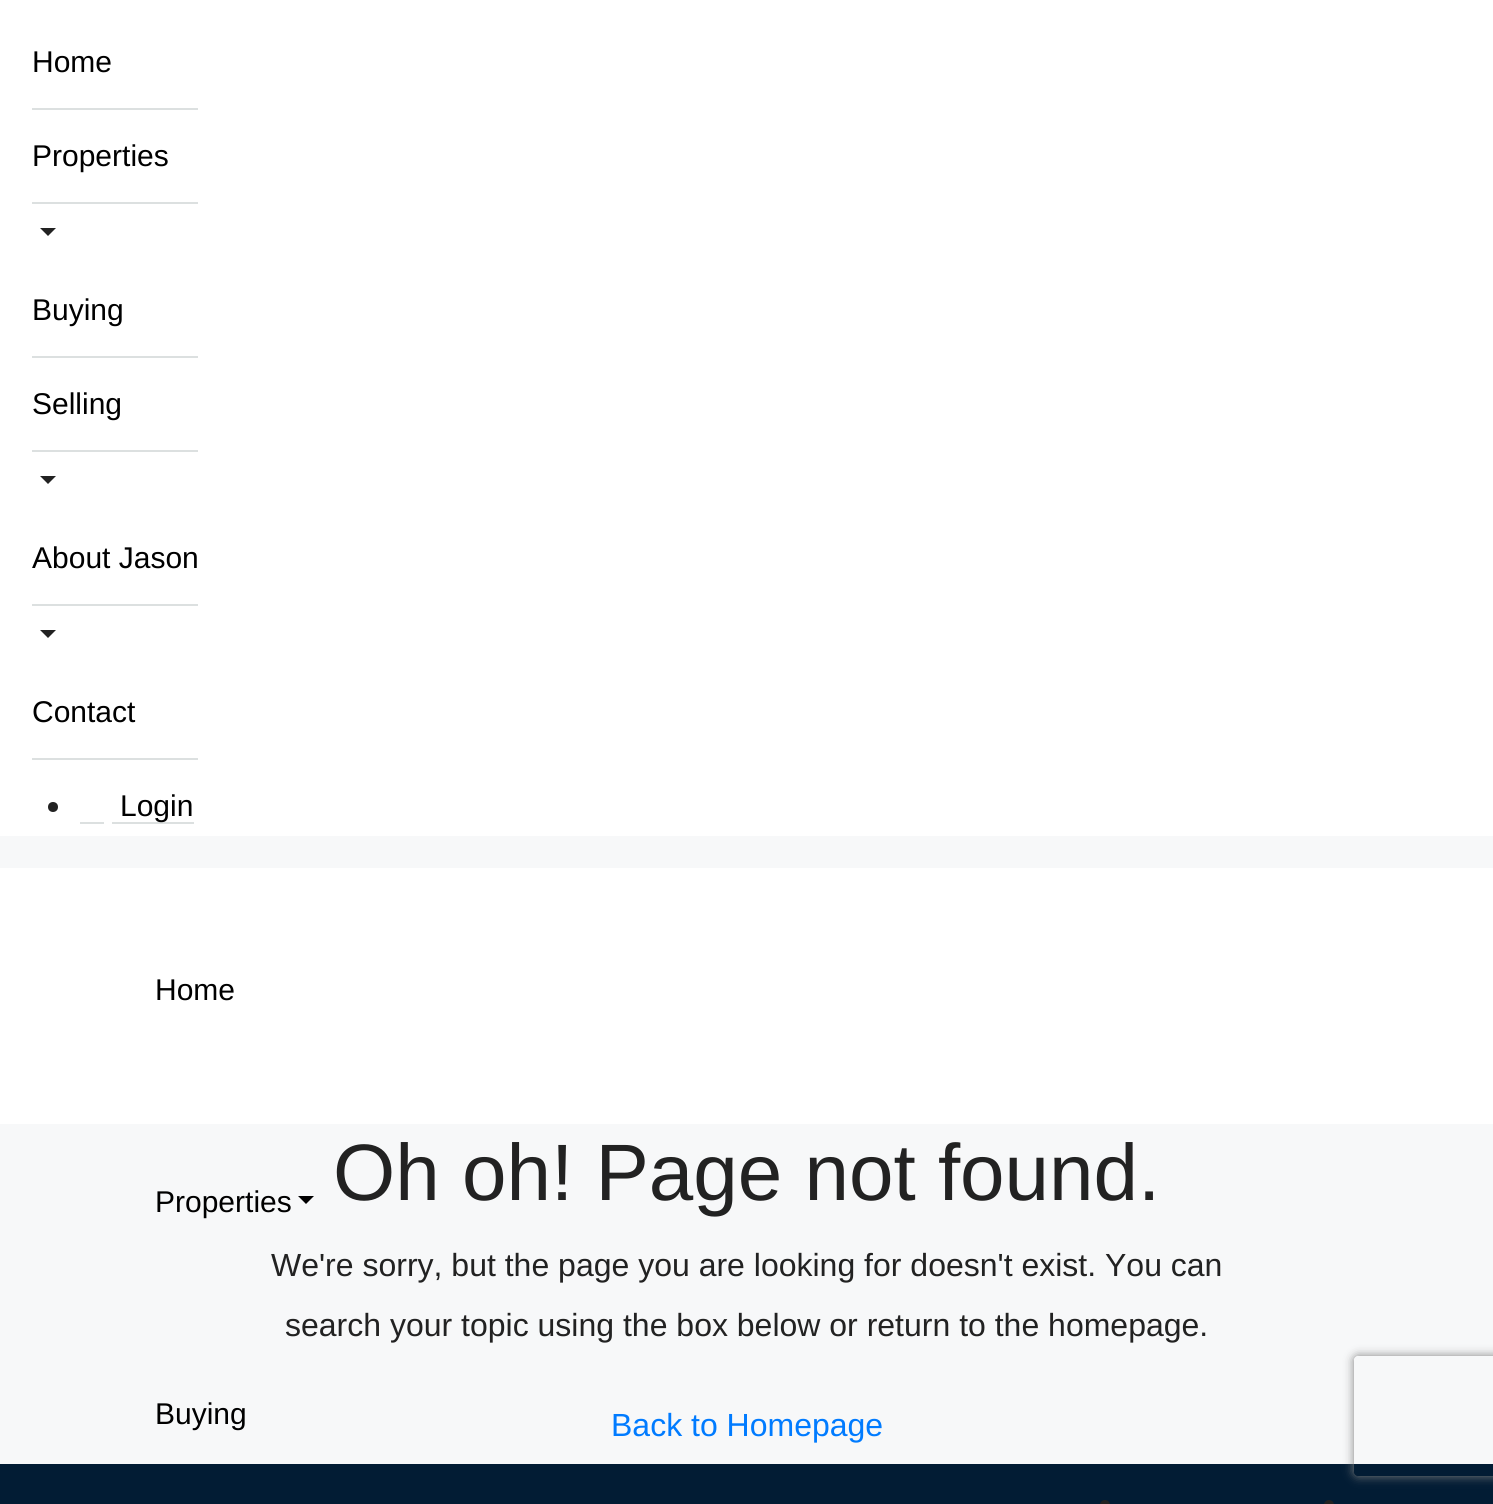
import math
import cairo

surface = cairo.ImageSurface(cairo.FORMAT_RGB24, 1493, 1504)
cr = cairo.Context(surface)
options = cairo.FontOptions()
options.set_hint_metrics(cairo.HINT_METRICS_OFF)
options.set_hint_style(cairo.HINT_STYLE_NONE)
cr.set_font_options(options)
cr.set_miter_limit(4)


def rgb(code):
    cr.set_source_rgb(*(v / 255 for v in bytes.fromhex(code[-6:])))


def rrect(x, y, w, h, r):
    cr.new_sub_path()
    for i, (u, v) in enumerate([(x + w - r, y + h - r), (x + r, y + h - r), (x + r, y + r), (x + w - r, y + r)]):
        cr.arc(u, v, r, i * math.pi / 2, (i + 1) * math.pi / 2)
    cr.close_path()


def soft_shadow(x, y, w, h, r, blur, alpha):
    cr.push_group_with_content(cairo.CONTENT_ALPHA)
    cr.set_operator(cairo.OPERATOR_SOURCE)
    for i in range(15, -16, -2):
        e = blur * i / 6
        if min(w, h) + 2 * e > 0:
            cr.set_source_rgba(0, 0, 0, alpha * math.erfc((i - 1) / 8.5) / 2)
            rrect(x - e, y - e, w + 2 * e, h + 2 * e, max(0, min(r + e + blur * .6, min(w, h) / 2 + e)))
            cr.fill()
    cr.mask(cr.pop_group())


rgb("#f7f8f9")
cr.paint()
for x, y, w, h, color in [
    (0, 0, 1493, 836, "#ffffff"),
    (32, 108, 166, 2, "#dce0e0"),
    (32, 202, 166, 2, "#dce0e0"),
]:
    rgb(color)
    cr.rectangle(x, y, w, h)
    cr.fill()
rgb("#222222")
cr.new_path()
cr.move_to(40, 228)
cr.line_to(56, 228)
cr.line_to(48, 236)
cr.close_path()
cr.fill()
rgb("#dce0e0")
cr.rectangle(32, 356, 166, 2)
cr.fill()
cr.rectangle(32, 450, 166, 2)
cr.fill()
rgb("#222222")
cr.new_path()
cr.move_to(40, 476)
cr.line_to(56, 476)
cr.line_to(48, 484)
cr.close_path()
cr.fill()
rgb("#dce0e0")
cr.rectangle(32, 604, 166, 2)
cr.fill()
rgb("#222222")
cr.new_path()
cr.move_to(40, 630)
cr.line_to(56, 630)
cr.line_to(48, 638)
cr.close_path()
cr.fill()
rgb("#dce0e0")
cr.rectangle(32, 758, 166, 2)
cr.fill()
rgb("#222222")
cr.arc(53, 807, 5, 0, 2 * math.pi)
cr.fill()
for x, y, w, h, color in [
    (80, 822, 24, 2, "#dce0e0"),
    (112, 822, 82, 2, "#dce0e0"),
    (0, 868, 1493, 256, "#ffffff"),
]:
    rgb(color)
    cr.rectangle(x, y, w, h)
    cr.fill()
rgb("#000000")
cr.new_path()
cr.move_to(298, 1196)
cr.line_to(314, 1196)
cr.line_to(306, 1204)
cr.close_path()
cr.fill()
rgb("#021c34")
cr.rectangle(0, 1464, 1493, 40)
cr.fill()
rgb("#222222")
rrect(1100, 1500, 10, 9, 5)
cr.fill()
rrect(1324, 1500, 10, 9, 5)
cr.fill()
cr.save()
cr.set_fill_rule(cairo.FILL_RULE_EVEN_ODD)
cr.new_path()
cr.move_to(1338, 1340)
cr.line_to(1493, 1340)
cr.line_to(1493, 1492)
cr.line_to(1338, 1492)
cr.close_path()
cr.move_to(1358, 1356)
cr.line_to(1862, 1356)
cr.curve_to(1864, 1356, 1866, 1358, 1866, 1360)
cr.line_to(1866, 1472)
cr.curve_to(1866, 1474, 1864, 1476, 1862, 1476)
cr.line_to(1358, 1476)
cr.curve_to(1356, 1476, 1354, 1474, 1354, 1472)
cr.line_to(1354, 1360)
cr.curve_to(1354, 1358, 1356, 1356, 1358, 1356)
cr.close_path()
cr.clip()
rgb("#808080")
soft_shadow(1354, 1356, 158, 120, 4, 5, 1)
cr.restore()
cr.select_font_face("Liberation Sans")
cr.set_font_size(30)
rgb("#000000")
for x, y, s in [
    (32, 72, "Home"),
    (32, 166, "Properties"),
    (32, 320, "Buying"),
    (32, 414, "Selling"),
    (32, 568, "About Jason"),
    (32, 722, "Contact"),
    (120, 816, "Login"),
    (155, 1000, "Home"),
    (155, 1212, "Properties"),
    (155, 1424, "Buying"),
]:
    cr.move_to(x, y)
    cr.show_text(s)
cr.set_font_size(80)
rgb("#222222")
cr.move_to(333, 1200)
cr.show_text("Oh oh! Page not found.")
cr.set_font_size(32)
cr.move_to(271, 1276)
cr.show_text("We're sorry, but the page you are looking for doesn't exist. You can")
cr.move_to(285, 1336)
cr.show_text("search your topic using the box below or return to the homepage.")
rgb("#007bff")
cr.move_to(611, 1436)
cr.show_text("Back to Homepage")
surface.write_to_png("page.png")
